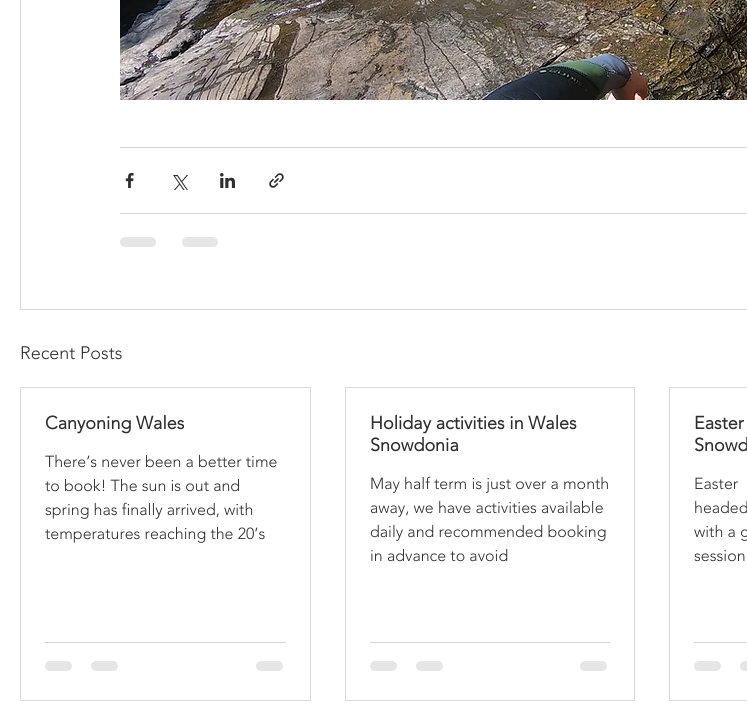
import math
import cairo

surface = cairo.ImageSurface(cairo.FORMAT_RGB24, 747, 710)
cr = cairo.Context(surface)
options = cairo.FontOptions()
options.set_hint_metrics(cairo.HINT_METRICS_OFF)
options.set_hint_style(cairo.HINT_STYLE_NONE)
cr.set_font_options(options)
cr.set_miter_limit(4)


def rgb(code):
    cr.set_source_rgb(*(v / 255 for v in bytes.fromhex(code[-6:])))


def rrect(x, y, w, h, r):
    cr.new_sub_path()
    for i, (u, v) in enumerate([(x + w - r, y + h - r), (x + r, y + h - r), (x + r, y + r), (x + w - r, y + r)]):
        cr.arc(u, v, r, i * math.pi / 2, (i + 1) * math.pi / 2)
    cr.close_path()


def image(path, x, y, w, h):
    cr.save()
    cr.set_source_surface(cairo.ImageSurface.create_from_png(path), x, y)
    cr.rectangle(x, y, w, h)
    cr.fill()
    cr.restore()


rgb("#ffffff")
cr.paint()
cr.rectangle(20.5, -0.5, 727, 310)
rgb("#d9d9d9")
cr.set_line_width(1)
cr.stroke()
image("img/1.png", 120, 0, 627, 100)
rgb("#d5d5d5")
cr.rectangle(120, 147, 627, 1)
cr.fill()
image("img/2.png", 125, 173, 9, 15)
image("img/3.png", 173, 175, 15, 15)
image("img/4.png", 220, 173, 15, 15)
image("img/5.png", 269, 173, 15, 15)
cr.rectangle(120, 213, 627, 1)
cr.fill()
rgb("#e6e6e6")
rrect(120, 237, 36, 10, 5)
cr.fill()
rrect(182, 237, 36, 10, 5)
cr.fill()
cr.rectangle(20.5, 387.5, 290, 313)
rgb("#d9d9d9")
cr.stroke()
rgb("#d5d5d5")
cr.rectangle(45, 642, 241, 1)
cr.fill()
rgb("#e6e6e6")
rrect(45, 661, 27, 10, 5)
cr.fill()
rrect(91, 661, 27, 10, 5)
cr.fill()
rrect(256, 661, 27, 10, 5)
cr.fill()
cr.rectangle(345.5, 387.5, 289, 313)
rgb("#d9d9d9")
cr.stroke()
rgb("#d5d5d5")
cr.rectangle(370, 642, 240, 1)
cr.fill()
rgb("#e6e6e6")
rrect(370, 661, 27, 10, 5)
cr.fill()
rrect(416, 661, 27, 10, 5)
cr.fill()
rrect(580, 661, 27, 10, 5)
cr.fill()
cr.rectangle(669.5, 387.5, 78, 313)
rgb("#d9d9d9")
cr.stroke()
rgb("#d5d5d5")
cr.rectangle(694, 642, 53, 1)
cr.fill()
rgb("#e6e6e6")
rrect(694, 661, 27, 10, 5)
cr.fill()
rrect(740, 661, 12, 10, 5)
cr.fill()
cr.select_font_face("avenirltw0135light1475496 Light")
cr.set_font_size(18)
rgb("#2f2e2e")
cr.move_to(20, 359)
cr.show_text("Recent Posts")
cr.select_font_face("avenirltw0135light1475496", cairo.FONT_SLANT_NORMAL, cairo.FONT_WEIGHT_BOLD)
cr.move_to(45, 429)
cr.show_text("Canyoning Wales")
cr.select_font_face("avenirltw0135light1475496 Light")
cr.set_font_size(16)
for x, y, s in [
    (45, 467, "There’s never been a better time"),
    (45, 491, "to book! The sun is out and"),
    (45, 515, "spring has finally arrived, with"),
    (45, 539, "temperatures reaching the 20’s"),
]:
    cr.move_to(x, y)
    cr.show_text(s)
cr.select_font_face("avenirltw0135light1475496", cairo.FONT_SLANT_NORMAL, cairo.FONT_WEIGHT_BOLD)
cr.set_font_size(18)
cr.move_to(370, 429)
cr.show_text("Holiday activities in Wales")
cr.move_to(370, 451)
cr.show_text("Snowdonia")
cr.select_font_face("avenirltw0135light1475496 Light")
cr.set_font_size(16)
for x, y, s in [
    (370, 489, "May half term is just over a month"),
    (370, 513, "away, we have activities available"),
    (370, 537, "daily and recommended booking"),
    (370, 561, "in advance to avoid"),
]:
    cr.move_to(x, y)
    cr.show_text(s)
cr.select_font_face("avenirltw0135light1475496", cairo.FONT_SLANT_NORMAL, cairo.FONT_WEIGHT_BOLD)
cr.set_font_size(18)
cr.move_to(694, 429)
cr.show_text("Easter")
cr.move_to(694, 451)
cr.show_text("Snowd")
cr.select_font_face("avenirltw0135light1475496 Light")
cr.set_font_size(16)
for x, y, s in [
    (694, 489, "Easter"),
    (694, 513, "headed"),
    (694, 537, "with a g"),
    (694, 561, "session"),
]:
    cr.move_to(x, y)
    cr.show_text(s)
surface.write_to_png("page.png")
